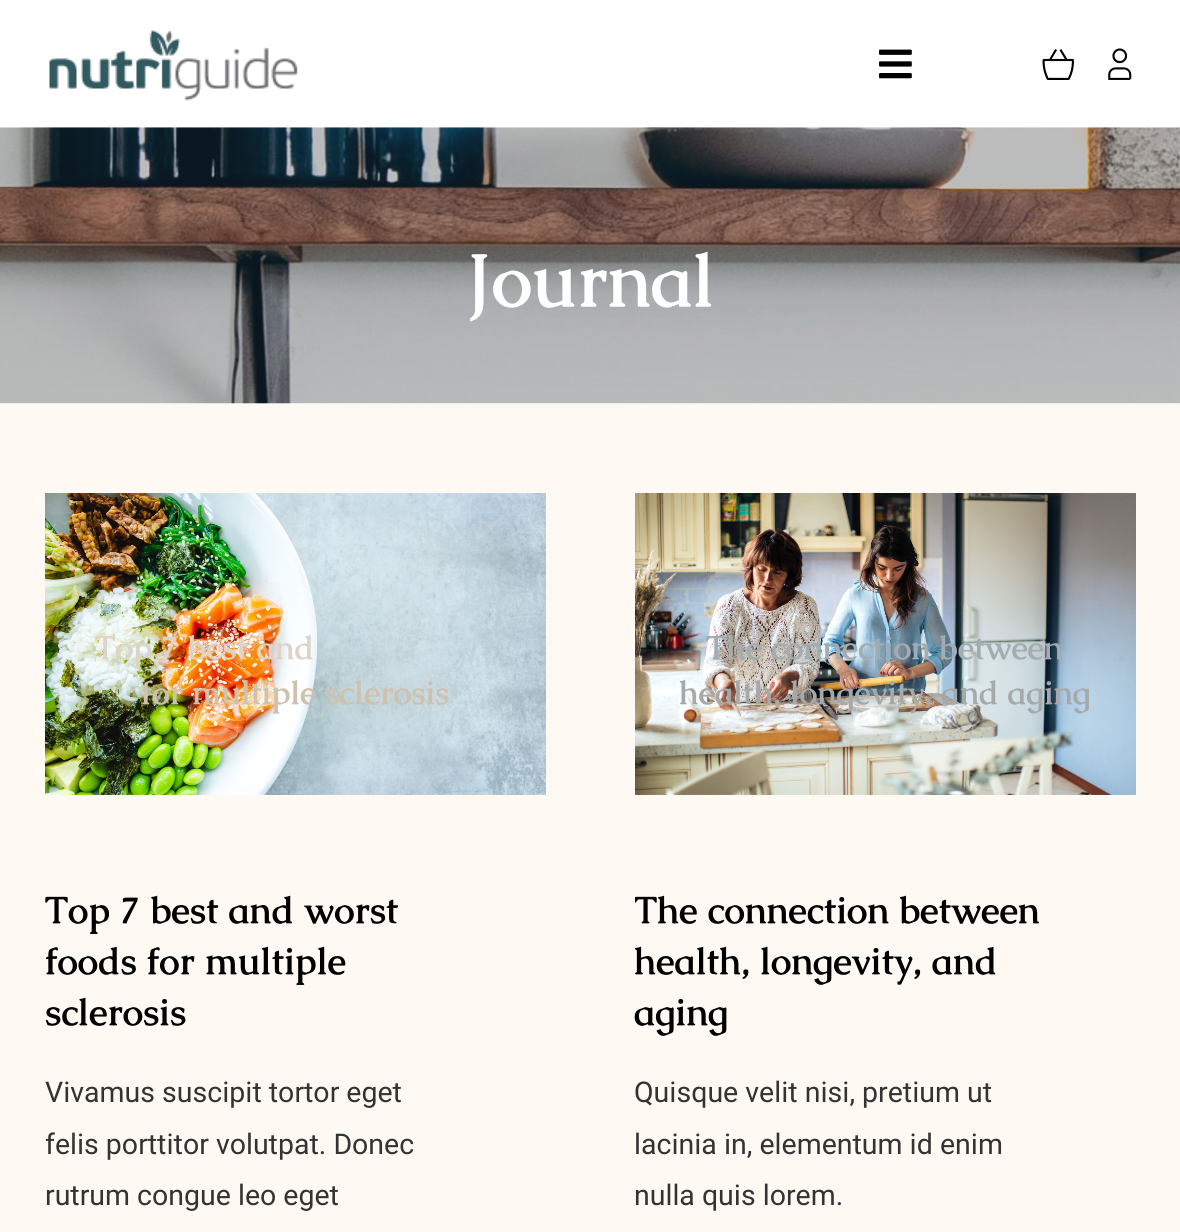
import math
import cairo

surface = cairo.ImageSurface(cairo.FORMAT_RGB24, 1180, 1232)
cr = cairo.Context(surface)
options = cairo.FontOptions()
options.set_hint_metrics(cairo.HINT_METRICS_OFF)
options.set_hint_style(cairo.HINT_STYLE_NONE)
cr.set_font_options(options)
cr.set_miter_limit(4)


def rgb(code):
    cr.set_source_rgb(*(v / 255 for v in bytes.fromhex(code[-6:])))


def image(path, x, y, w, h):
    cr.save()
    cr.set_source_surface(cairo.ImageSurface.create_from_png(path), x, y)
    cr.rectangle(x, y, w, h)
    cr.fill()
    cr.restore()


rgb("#ffffff")
cr.paint()
image("img/1.png", 49, 29, 249, 72)
image("img/2.png", 879, 49, 33, 30)
image("img/3.png", 1042, 49, 32, 31)
image("img/4.png", 1108, 48, 24, 32)
image("img/5.png", 0, 127, 1180, 277)
rgb("#fff9f3")
cr.rectangle(0, 404, 1180, 828)
cr.fill()
image("img/6.png", 45, 493, 501, 302)
image("img/7.png", 635, 493, 501, 302)
cr.select_font_face("Caudex", cairo.FONT_SLANT_NORMAL, cairo.FONT_WEIGHT_BOLD)
cr.set_font_size(74.5)
rgb("#ffffff")
cr.move_to(467, 306)
cr.show_text("Journal")
cr.set_font_size(33)
rgb("#dbd4c7")
cr.move_to(95, 659)
cr.show_text("Top 7 best and")
rgb("#cec2ad")
cr.move_to(141, 704)
cr.show_text("for multiple sclerosis")
cr.set_font_size(37.5)
rgb("#000000")
for x, y, s in [
    (45, 923, "Top 7 best and worst"),
    (45, 974, "foods for multiple"),
    (45, 1025, "sclerosis"),
]:
    cr.move_to(x, y)
    cr.show_text(s)
cr.select_font_face("Heebo")
cr.set_font_size(28.5)
rgb("#333333")
for x, y, s in [
    (45, 1102, "Vivamus suscipit tortor eget"),
    (45, 1154, "felis porttitor volutpat. Donec"),
    (45, 1205, "rutrum congue leo eget"),
]:
    cr.move_to(x, y)
    cr.show_text(s)
cr.select_font_face("Caudex", cairo.FONT_SLANT_NORMAL, cairo.FONT_WEIGHT_BOLD)
cr.set_font_size(33)
rgb("#a2adb3")
cr.move_to(706, 659)
cr.show_text("The connection between")
rgb("#a6a9a9")
cr.move_to(679, 704)
cr.show_text("health, longevity, and aging")
cr.save()
cr.rectangle(635, 494, 501, 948)
cr.clip()
cr.set_font_size(37.5)
rgb("#000000")
cr.move_to(634, 923)
cr.show_text("The connection between")
cr.restore()
cr.set_font_size(37.5)
rgb("#000000")
cr.move_to(634, 974)
cr.show_text("health, longevity, and")
cr.move_to(634, 1025)
cr.show_text("aging")
cr.select_font_face("Heebo")
cr.set_font_size(28.5)
rgb("#333333")
for x, y, s in [
    (634, 1102, "Quisque velit nisi, pretium ut"),
    (634, 1154, "lacinia in, elementum id enim"),
    (634, 1205, "nulla quis lorem."),
]:
    cr.move_to(x, y)
    cr.show_text(s)
surface.write_to_png("page.png")
